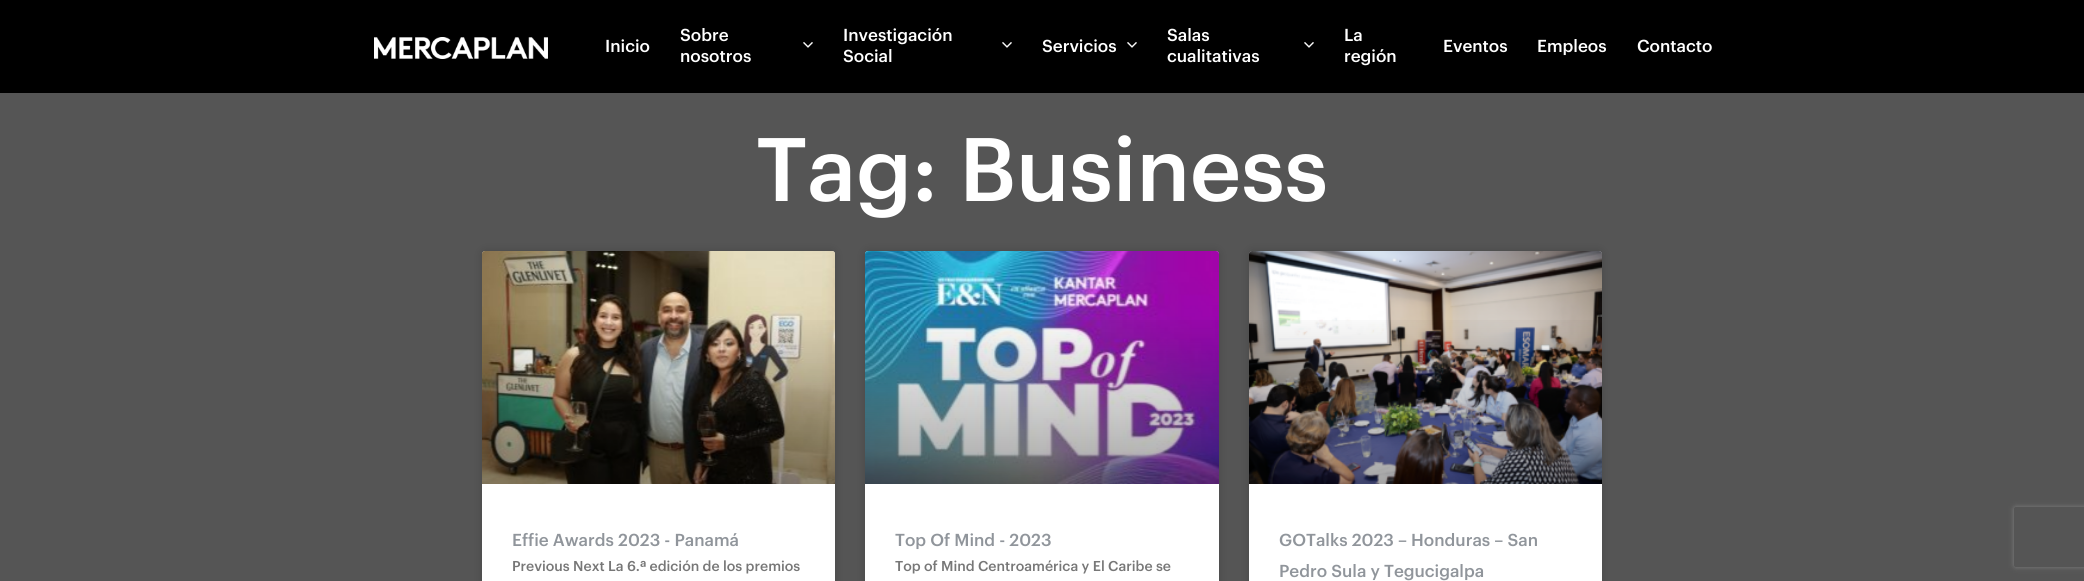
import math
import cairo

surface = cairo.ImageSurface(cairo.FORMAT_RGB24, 2084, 581)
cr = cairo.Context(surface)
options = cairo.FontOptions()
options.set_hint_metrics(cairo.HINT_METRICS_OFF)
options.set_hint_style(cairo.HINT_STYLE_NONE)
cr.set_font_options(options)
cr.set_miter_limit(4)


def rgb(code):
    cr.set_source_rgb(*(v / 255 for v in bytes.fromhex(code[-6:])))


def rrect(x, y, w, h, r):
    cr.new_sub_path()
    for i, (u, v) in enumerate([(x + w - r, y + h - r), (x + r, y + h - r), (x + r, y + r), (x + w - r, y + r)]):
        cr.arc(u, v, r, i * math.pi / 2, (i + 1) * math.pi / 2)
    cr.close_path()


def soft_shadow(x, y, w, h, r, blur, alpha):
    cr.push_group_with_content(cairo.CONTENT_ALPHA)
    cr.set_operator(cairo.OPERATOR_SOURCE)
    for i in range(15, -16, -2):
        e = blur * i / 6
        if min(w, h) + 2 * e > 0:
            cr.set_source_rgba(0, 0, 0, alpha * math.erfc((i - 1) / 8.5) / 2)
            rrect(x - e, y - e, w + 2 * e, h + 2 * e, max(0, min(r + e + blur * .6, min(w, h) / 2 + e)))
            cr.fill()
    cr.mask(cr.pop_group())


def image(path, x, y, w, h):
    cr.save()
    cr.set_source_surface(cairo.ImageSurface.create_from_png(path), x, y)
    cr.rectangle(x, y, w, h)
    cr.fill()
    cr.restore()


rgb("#000000")
cr.paint()
image("img/1.png", 374, 37, 174, 22)
image("img/2.png", 803, 42, 10, 6)
image("img/2.png", 1002, 42, 10, 6)
image("img/2.png", 1127, 42, 10, 6)
image("img/2.png", 1304, 42, 10, 6)
rgb("#555555")
cr.rectangle(0, 93, 2084, 488)
cr.fill()
rgb("#000000")
soft_shadow(482, 251, 353, 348, 3, 5, 0.15)
rgb("#ffffff")
cr.new_path()
cr.move_to(485, 251)
cr.line_to(832, 251)
cr.curve_to(833.5, 251, 835, 252.5, 835, 254)
cr.line_to(835, 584)
cr.line_to(482, 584)
cr.line_to(482, 254)
cr.curve_to(482, 252.5, 483.5, 251, 485, 251)
cr.close_path()
cr.fill()
image("img/3.png", 482, 251, 353, 233)
gradient = cairo.LinearGradient(659, 484, 659, 251)
gradient.add_color_stop_rgba(0, 0, 0, 0, 0.35)
gradient.add_color_stop_rgba(0.75, 0, 0, 0, 0)
cr.set_source(gradient)
cr.rectangle(482, 320, 353, 164)
cr.fill()
rgb("#000000")
soft_shadow(865, 251, 354, 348, 3, 5, 0.15)
rgb("#ffffff")
cr.new_path()
cr.move_to(868, 251)
cr.line_to(1216, 251)
cr.curve_to(1217.5, 251, 1219, 252.5, 1219, 254)
cr.line_to(1219, 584)
cr.line_to(865, 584)
cr.line_to(865, 254)
cr.curve_to(865, 252.5, 866.5, 251, 868, 251)
cr.close_path()
cr.fill()
image("img/4.png", 865, 251, 354, 233)
gradient = cairo.LinearGradient(1042, 484, 1042, 251)
gradient.add_color_stop_rgba(0, 0, 0, 0, 0.35)
gradient.add_color_stop_rgba(0.75, 0, 0, 0, 0)
cr.set_source(gradient)
cr.rectangle(865, 320, 354, 164)
cr.fill()
rgb("#000000")
soft_shadow(1249, 251, 353, 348, 3, 5, 0.15)
rgb("#ffffff")
cr.new_path()
cr.move_to(1252, 251)
cr.line_to(1599, 251)
cr.curve_to(1600.5, 251, 1602, 252.5, 1602, 254)
cr.line_to(1602, 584)
cr.line_to(1249, 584)
cr.line_to(1249, 254)
cr.curve_to(1249, 252.5, 1250.5, 251, 1252, 251)
cr.close_path()
cr.fill()
image("img/5.png", 1249, 251, 353, 233)
gradient = cairo.LinearGradient(1426, 484, 1426, 251)
gradient.add_color_stop_rgba(0, 0, 0, 0, 0.35)
gradient.add_color_stop_rgba(0.75, 0, 0, 0, 0)
cr.set_source(gradient)
cr.rectangle(1249, 320, 353, 164)
cr.fill()
cr.save()
cr.set_fill_rule(cairo.FILL_RULE_EVEN_ODD)
cr.new_path()
cr.move_to(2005, 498)
cr.line_to(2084, 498)
cr.line_to(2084, 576)
cr.line_to(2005, 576)
cr.close_path()
cr.move_to(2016, 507)
cr.line_to(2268, 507)
cr.curve_to(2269, 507, 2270, 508, 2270, 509)
cr.line_to(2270, 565)
cr.curve_to(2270, 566, 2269, 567, 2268, 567)
cr.line_to(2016, 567)
cr.curve_to(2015, 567, 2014, 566, 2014, 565)
cr.line_to(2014, 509)
cr.curve_to(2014, 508, 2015, 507, 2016, 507)
cr.close_path()
cr.clip()
rgb("#808080")
soft_shadow(2014, 507, 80, 60, 2, 2.5, 1)
cr.restore()
cr.select_font_face("Graphik Medium")
cr.set_font_size(17)
rgb("#ffffff")
for x, y, s in [
    (605, 52, "Inicio"),
    (680, 41, "Sobre"),
    (680, 62, "nosotros"),
    (843, 41, "Investigación"),
    (843, 62, "Social"),
    (1042, 52, "Servicios"),
    (1167, 41, "Salas"),
    (1167, 62, "cualitativas"),
    (1344, 41, "La"),
    (1344, 62, "región"),
    (1443, 52, "Eventos"),
    (1537, 52, "Empleos"),
    (1637, 52, "Contacto"),
]:
    cr.move_to(x, y)
    cr.show_text(s)
cr.set_font_size(88)
cr.move_to(756, 201)
cr.show_text("Tag: Business")
cr.set_font_size(17)
rgb("#90959b")
cr.move_to(512, 546)
cr.show_text("Effie Awards 2023 - Panamá")
cr.set_font_size(14)
rgb("#777777")
cr.move_to(512, 571)
cr.show_text("Previous Next La 6.ª edición de los premios")
cr.set_font_size(17)
rgb("#90959b")
cr.move_to(895, 546)
cr.show_text("Top Of Mind - 2023")
cr.set_font_size(14)
rgb("#777777")
cr.move_to(895, 571)
cr.show_text("Top of Mind Centroamérica y El Caribe se")
cr.set_font_size(17)
rgb("#90959b")
cr.move_to(1279, 546)
cr.show_text("GOTalks 2023 – Honduras – San")
cr.move_to(1279, 577)
cr.show_text("Pedro Sula y Tegucigalpa")
surface.write_to_png("page.png")
